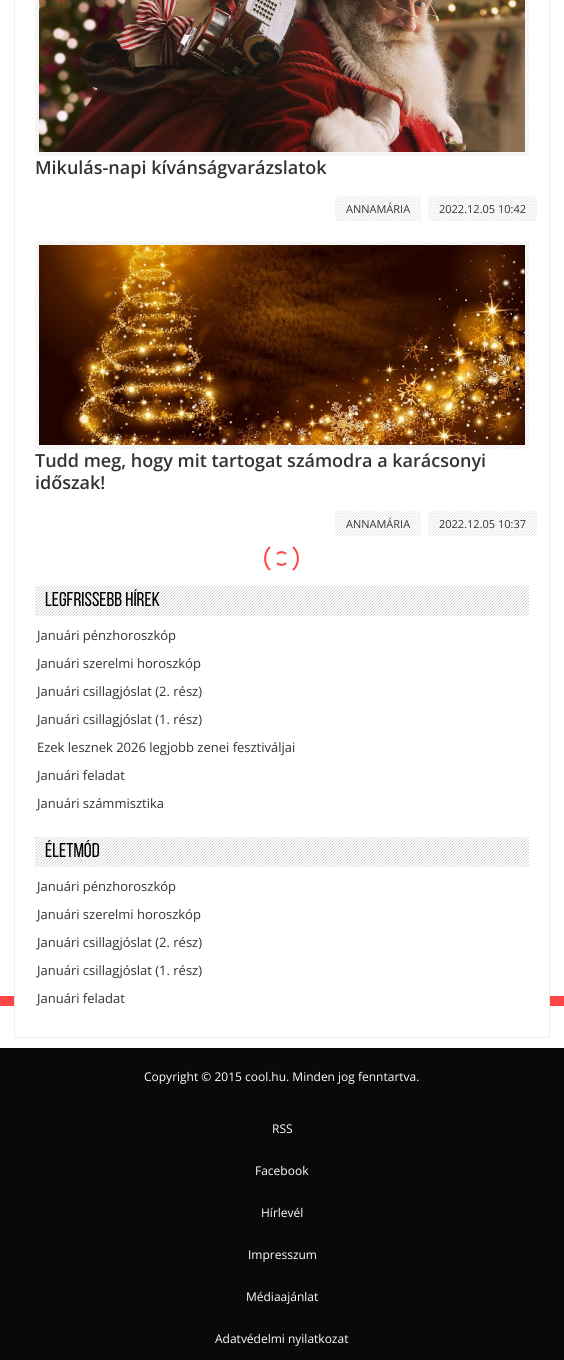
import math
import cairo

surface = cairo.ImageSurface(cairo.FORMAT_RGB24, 564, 1360)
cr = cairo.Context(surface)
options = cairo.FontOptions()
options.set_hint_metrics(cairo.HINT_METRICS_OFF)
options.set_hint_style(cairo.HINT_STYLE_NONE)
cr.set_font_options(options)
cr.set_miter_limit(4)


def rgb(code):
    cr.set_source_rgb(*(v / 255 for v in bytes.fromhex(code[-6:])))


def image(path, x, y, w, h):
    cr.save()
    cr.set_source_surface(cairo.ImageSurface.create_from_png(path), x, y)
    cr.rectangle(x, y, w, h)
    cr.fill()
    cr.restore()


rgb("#ffffff")
cr.paint()
rgb("#ff4545")
cr.rectangle(0, 996, 564, 10)
cr.fill()
rgb("#ffffff")
cr.rectangle(15, 996, 534, 10)
cr.fill()
cr.rectangle(14.5, -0.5, 535, 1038)
rgb("#eeeeee")
cr.set_line_width(1)
cr.stroke()
image("img/1.png", 35, 0, 494, 156)
image("img/2.png", 39, 0, 486, 152)
image("img/3.png", 335, 196, 86, 25)
image("img/4.png", 428, 196, 109, 25)
image("img/5.png", 35, 241, 494, 208)
image("img/6.png", 39, 245, 486, 200)
image("img/3.png", 335, 511, 86, 25)
image("img/4.png", 428, 511, 109, 25)
cr.new_path()
cr.move_to(293, 547)
cr.curve_to(299.5, 553, 299.5, 564, 293, 570)
cr.move_to(270, 570)
cr.curve_to(263.5, 564, 263.5, 553, 270, 547)
cr.move_to(277, 554)
cr.curve_to(279.5, 551.5, 283.5, 551.5, 286, 554)
cr.move_to(286, 563)
cr.curve_to(283.5, 565.5, 279.5, 565.5, 277, 563)
rgb("#ff4545")
cr.set_line_width(2)
cr.stroke()
image("img/7.png", 35, 586, 494, 30)
image("img/7.png", 35, 837, 494, 30)
rgb("#090909")
cr.rectangle(0, 1048, 564, 312)
cr.fill()
cr.select_font_face("Open Sans SemiBold")
cr.set_font_size(18)
rgb("#333333")
cr.move_to(35, 174)
cr.show_text("Mikulás-napi kívánságvarázslatok")
cr.select_font_face("Open Sans")
cr.set_font_size(11)
cr.move_to(346, 213)
cr.show_text("ANNAMÁRIA")
cr.move_to(439, 213)
cr.show_text("2022.12.05 10:42")
cr.select_font_face("Open Sans SemiBold")
cr.set_font_size(18)
cr.move_to(35, 467)
cr.show_text("Tudd meg, hogy mit tartogat számodra a karácsonyi")
cr.move_to(35, 489)
cr.show_text("időszak!")
cr.select_font_face("Open Sans")
cr.set_font_size(11)
cr.move_to(346, 528)
cr.show_text("ANNAMÁRIA")
cr.move_to(439, 528)
cr.show_text("2022.12.05 10:37")
cr.select_font_face("Bebas Neue")
cr.set_font_size(20)
rgb("#000000")
cr.move_to(45, 606)
cr.show_text("LEGFRISSEBB HÍREK")
cr.select_font_face("Open Sans")
cr.set_font_size(13)
rgb("#333333")
for x, y, s in [
    (37, 640, "Januári pénzhoroszkóp"),
    (37, 668, "Januári szerelmi horoszkóp"),
    (37, 696, "Januári csillagjóslat (2. rész)"),
    (37, 724, "Januári csillagjóslat (1. rész)"),
    (37, 752, "Ezek lesznek 2026 legjobb zenei fesztiváljai"),
    (37, 780, "Januári feladat"),
    (37, 808, "Januári számmisztika"),
]:
    cr.move_to(x, y)
    cr.show_text(s)
cr.select_font_face("Bebas Neue")
cr.set_font_size(20)
rgb("#000000")
cr.move_to(45, 857)
cr.show_text("ÉLETMÓD")
cr.select_font_face("Open Sans")
cr.set_font_size(13)
rgb("#333333")
for x, y, s in [
    (37, 891, "Januári pénzhoroszkóp"),
    (37, 919, "Januári szerelmi horoszkóp"),
    (37, 947, "Januári csillagjóslat (2. rész)"),
    (37, 975, "Januári csillagjóslat (1. rész)"),
    (37, 1003, "Januári feladat"),
]:
    cr.move_to(x, y)
    cr.show_text(s)
cr.set_font_size(12)
rgb("#ffffff")
for x, y, s in [
    (144, 1081, "Copyright © 2015 cool.hu. Minden jog fenntartva."),
    (272, 1133, "RSS"),
    (255, 1175, "Facebook"),
    (261, 1217, "Hírlevél"),
    (248, 1259, "Impresszum"),
    (246, 1301, "Médiaajánlat"),
    (215, 1343, "Adatvédelmi nyilatkozat"),
]:
    cr.move_to(x, y)
    cr.show_text(s)
surface.write_to_png("page.png")
